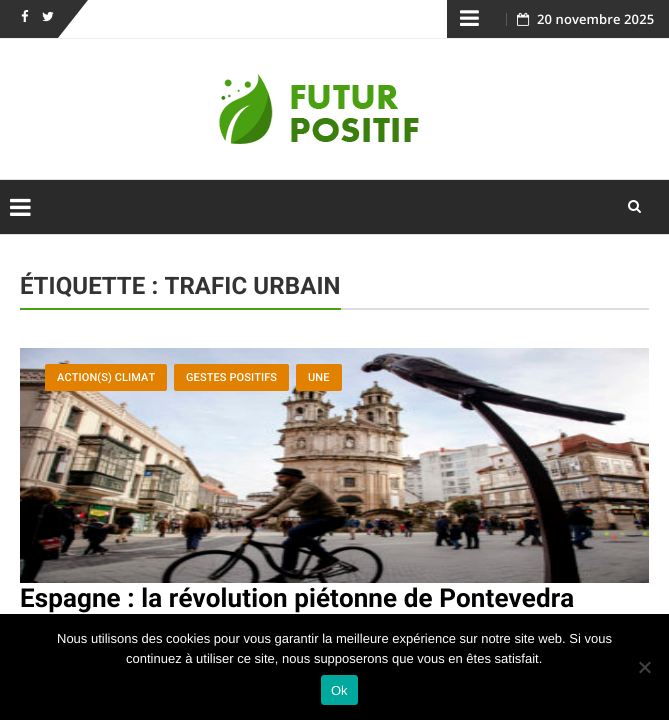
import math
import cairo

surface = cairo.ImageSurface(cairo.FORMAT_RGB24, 669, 720)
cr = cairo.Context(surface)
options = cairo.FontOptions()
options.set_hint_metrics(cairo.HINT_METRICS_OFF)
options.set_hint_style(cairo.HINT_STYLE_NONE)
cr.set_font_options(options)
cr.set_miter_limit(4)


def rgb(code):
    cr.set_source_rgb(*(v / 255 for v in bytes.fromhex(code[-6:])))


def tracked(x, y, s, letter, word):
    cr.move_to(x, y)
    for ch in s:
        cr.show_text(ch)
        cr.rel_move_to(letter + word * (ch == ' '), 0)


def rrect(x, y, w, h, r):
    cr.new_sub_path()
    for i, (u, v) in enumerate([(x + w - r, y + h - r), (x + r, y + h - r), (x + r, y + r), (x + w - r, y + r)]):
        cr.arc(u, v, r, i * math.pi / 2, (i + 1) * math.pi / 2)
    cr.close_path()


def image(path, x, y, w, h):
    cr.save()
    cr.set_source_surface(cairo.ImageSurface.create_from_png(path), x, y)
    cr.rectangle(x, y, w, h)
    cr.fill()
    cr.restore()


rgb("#ffffff")
cr.paint()
rgb("#eeeeee")
cr.rectangle(0, 38, 669, 1)
cr.fill()
rgb("#313131")
cr.new_path()
cr.move_to(0, 0)
cr.line_to(88, 0)
cr.line_to(58, 38)
cr.line_to(0, 38)
cr.close_path()
cr.fill()
image("img/1.png", 21, 10, 8, 13)
image("img/2.png", 42, 11, 12, 11)
cr.rectangle(447, 0, 30, 38)
cr.fill()
cr.new_path()
cr.move_to(669, 38)
cr.line_to(447, 38)
cr.line_to(477, 0)
cr.line_to(669, 0)
cr.close_path()
cr.fill()
image("img/3.png", 460, 10, 19, 16)
rgb("#595959")
cr.rectangle(506, 13, 1, 13)
cr.fill()
image("img/4.png", 517, 12, 13, 14)
image("img/5.png", 219, 74, 200, 70)
for x, y, w, h, color in [
    (0, 180, 669, 54, "#2a2a2a"),
    (0, 179, 669, 1, "#dddddd"),
    (0, 234, 669, 1, "#dddddd"),
]:
    rgb(color)
    cr.rectangle(x, y, w, h)
    cr.fill()
image("img/6.png", 10, 198, 21, 18)
image("img/7.png", 628, 200, 13, 13)
rgb("#49a010")
cr.rectangle(20, 308, 321, 2)
cr.fill()
rgb("#dddddd")
cr.rectangle(341, 308, 308, 2)
cr.fill()
image("img/8.png", 20, 348, 629, 235)
rgb("#e28000")
rrect(45, 364, 122, 27, 2)
cr.fill()
rrect(174, 364, 115, 27, 2)
cr.fill()
rrect(296, 364, 46, 27, 2)
cr.fill()
rgb("#000000")
cr.rectangle(0, 614, 669, 106)
cr.fill()
rgb("#404040")
cr.new_path()
cr.move_to(649.5, 661.5)
cr.line_to(651, 663)
cr.line_to(640.5, 673.5)
cr.line_to(639, 672)
cr.close_path()
cr.fill()
cr.new_path()
cr.move_to(639, 663)
cr.line_to(640.5, 661.5)
cr.line_to(651, 672)
cr.line_to(649.5, 673.5)
cr.close_path()
cr.fill()
rgb("#00a99d")
rrect(321, 675, 37, 30, 3)
cr.fill()
cr.select_font_face("Open Sans SemiBold")
cr.set_font_size(13)
rgb("#ffffff")
tracked(537, 24, "20 novembre 2025", 0.1, 0)
cr.select_font_face("Roboto", cairo.FONT_SLANT_NORMAL, cairo.FONT_WEIGHT_BOLD)
cr.set_font_size(24)
rgb("#333333")
tracked(20, 294, "ÉTIQUETTE : TRAFIC URBAIN", 0.1, 0)
cr.select_font_face("Roboto Medium")
cr.set_font_size(11)
rgb("#ffffff")
for x, y, s in [
    (57, 381, "ACTION(S) CLIMAT"),
    (186, 381, "GESTES POSITIFS"),
    (308, 381, "UNE"),
]:
    tracked(x, y, s, 0.1, 0)
cr.select_font_face("Roboto", cairo.FONT_SLANT_NORMAL, cairo.FONT_WEIGHT_BOLD)
cr.set_font_size(26)
rgb("#000000")
tracked(20, 607, "Espagne : la révolution piétonne de Pontevedra", 0.1, 0)
cr.select_font_face("Liberation Sans")
cr.set_font_size(13)
rgb("#ffffff")
for x, y, s in [
    (57, 643, "Nous utilisons des cookies pour vous garantir la meilleure expérience sur notre site web. Si vous"),
    (126, 663, "continuez à utiliser ce site, nous supposerons que vous en êtes satisfait."),
    (331, 695, "Ok"),
]:
    cr.move_to(x, y)
    cr.show_text(s)
surface.write_to_png("page.png")
